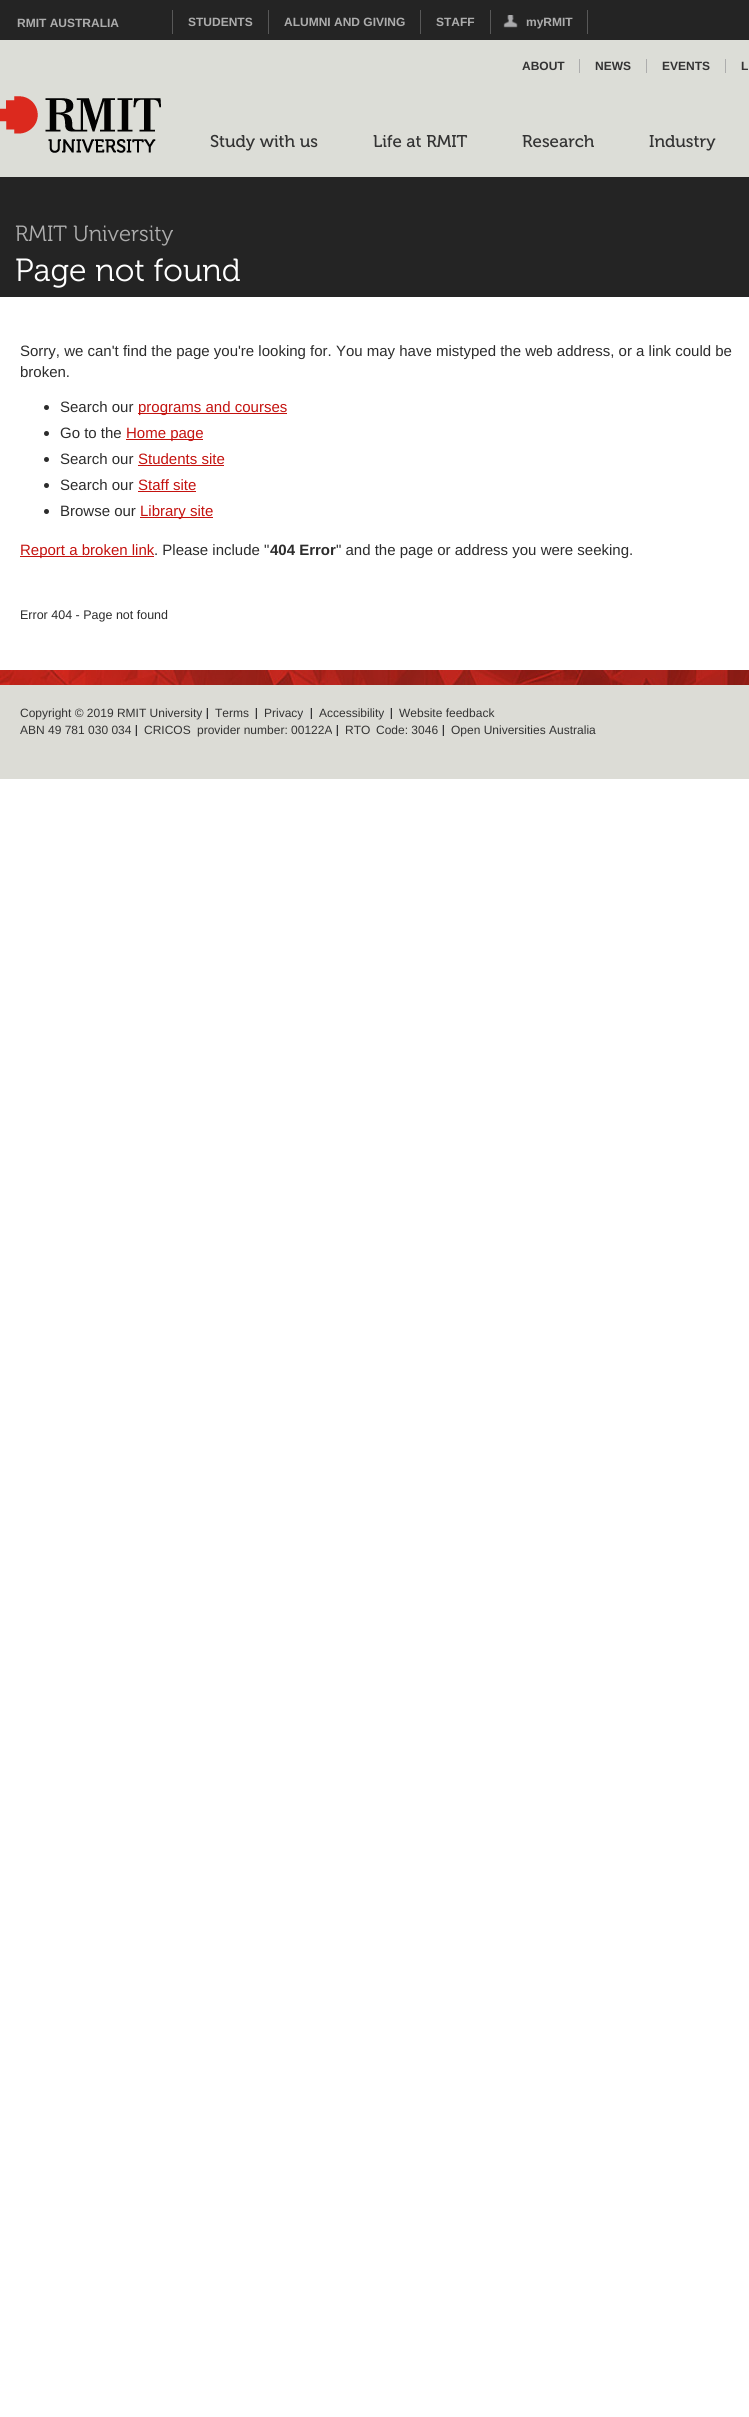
import math
import cairo

surface = cairo.ImageSurface(cairo.FORMAT_RGB24, 749, 2417)
cr = cairo.Context(surface)
options = cairo.FontOptions()
options.set_hint_metrics(cairo.HINT_METRICS_OFF)
options.set_hint_style(cairo.HINT_STYLE_NONE)
cr.set_font_options(options)
cr.set_miter_limit(4)


def rgb(code):
    cr.set_source_rgb(*(v / 255 for v in bytes.fromhex(code[-6:])))


def image(path, x, y, w, h):
    cr.save()
    cr.set_source_surface(cairo.ImageSurface.create_from_png(path), x, y)
    cr.rectangle(x, y, w, h)
    cr.fill()
    cr.restore()


rgb("#ffffff")
cr.paint()
for x, y, w, h, color in [
    (0, 0, 749, 40, "#242424"),
    (172, 10, 1, 24, "#585858"),
    (268, 10, 1, 24, "#585858"),
    (420, 10, 1, 24, "#585858"),
    (587, 10, 1, 24, "#585858"),
    (490, 10, 1, 24, "#585858"),
]:
    rgb(color)
    cr.rectangle(x, y, w, h)
    cr.fill()
image("img/1.png", 503, 15, 15, 13)
rgb("#dcddd7")
cr.rectangle(0, 40, 749, 137)
cr.fill()
image("img/2.png", 0, 670, 749, 15)
image("img/3.png", 0, 96, 161, 57)
for x, y, w, h, color in [
    (579, 59, 1, 14, "#adadad"),
    (646, 59, 1, 14, "#adadad"),
    (725, 59, 1, 14, "#adadad"),
    (0, 177, 749, 120, "#242424"),
]:
    rgb(color)
    cr.rectangle(x, y, w, h)
    cr.fill()
rgb("#2c2c2c")
cr.arc(46.5, 407.5, 2.5, 0, 2 * math.pi)
cr.fill()
rgb("#c4120f")
cr.rectangle(138, 413, 149, 1)
cr.fill()
rgb("#2c2c2c")
cr.arc(46.5, 433.5, 2.5, 0, 2 * math.pi)
cr.fill()
rgb("#c4120f")
cr.rectangle(126, 439, 77, 1)
cr.fill()
rgb("#2c2c2c")
cr.arc(46.5, 459.5, 2.5, 0, 2 * math.pi)
cr.fill()
rgb("#c4120f")
cr.rectangle(138, 465, 86, 1)
cr.fill()
rgb("#2c2c2c")
cr.arc(46.5, 485.5, 2.5, 0, 2 * math.pi)
cr.fill()
rgb("#c4120f")
cr.rectangle(138, 491, 58, 1)
cr.fill()
rgb("#2c2c2c")
cr.arc(46.5, 511.5, 2.5, 0, 2 * math.pi)
cr.fill()
for x, y, w, h, color in [
    (140, 517, 73, 1, "#c4120f"),
    (20, 556, 134, 1, "#c4120f"),
    (0, 685, 749, 94, "#dcdcd6"),
]:
    rgb(color)
    cr.rectangle(x, y, w, h)
    cr.fill()
image("img/4.png", 206, 708, 2, 11)
image("img/4.png", 255, 708, 2, 11)
image("img/4.png", 310, 708, 2, 11)
image("img/4.png", 390, 708, 2, 11)
image("img/4.png", 135, 725, 2, 11)
image("img/4.png", 336, 725, 2, 11)
image("img/4.png", 442, 725, 2, 11)
cr.select_font_face("Liberation Sans", cairo.FONT_SLANT_NORMAL, cairo.FONT_WEIGHT_BOLD)
cr.set_font_size(12)
rgb("#adadad")
for x, y, s in [
    (17, 27, "RMIT AUSTRALIA"),
    (188, 26, "STUDENTS"),
    (284, 26, "ALUMNI AND GIVING"),
    (436, 26, "STAFF"),
    (526, 26, "myRMIT"),
]:
    cr.move_to(x, y)
    cr.show_text(s)
rgb("#333333")
for x, y, s in [
    (522, 70, "ABOUT"),
    (595, 70, "NEWS"),
    (662, 70, "EVENTS"),
    (741, 70, "L"),
]:
    cr.move_to(x, y)
    cr.show_text(s)
cr.select_font_face("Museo")
cr.set_font_size(17)
for x, y, s in [
    (210, 147, "Study with us"),
    (373, 147, "Life at RMIT"),
    (522, 147, "Research"),
    (649, 147, "Industry"),
]:
    cr.move_to(x, y)
    cr.show_text(s)
cr.select_font_face("Museo Light")
cr.set_font_size(22)
rgb("#adadad")
cr.move_to(15, 241)
cr.show_text("RMIT University")
cr.set_font_size(32)
rgb("#ffffff")
cr.move_to(15, 281)
cr.show_text("Page not found")
cr.select_font_face("Liberation Sans")
cr.set_font_size(15)
rgb("#2c2c2c")
for x, y, s in [
    (20, 356, "Sorry, we can't find the page you're looking for. You may have mistyped the web address, or a link could be"),
    (20, 377, "broken."),
    (60, 412, "Search our"),
]:
    cr.move_to(x, y)
    cr.show_text(s)
rgb("#c4120f")
cr.move_to(138, 412)
cr.show_text("programs and courses")
rgb("#2c2c2c")
cr.move_to(60, 438)
cr.show_text("Go to the")
rgb("#c4120f")
cr.move_to(126, 438)
cr.show_text("Home page")
rgb("#2c2c2c")
cr.move_to(60, 464)
cr.show_text("Search our")
rgb("#c4120f")
cr.move_to(138, 464)
cr.show_text("Students site")
rgb("#2c2c2c")
cr.move_to(60, 490)
cr.show_text("Search our")
rgb("#c4120f")
cr.move_to(138, 490)
cr.show_text("Staff site")
rgb("#2c2c2c")
cr.move_to(60, 516)
cr.show_text("Browse our")
rgb("#c4120f")
cr.move_to(140, 516)
cr.show_text("Library site")
cr.move_to(20, 555)
cr.show_text("Report a broken link")
rgb("#2c2c2c")
cr.move_to(154, 555)
cr.show_text(". Please include \"")
cr.select_font_face("Liberation Sans", cairo.FONT_SLANT_NORMAL, cairo.FONT_WEIGHT_BOLD)
cr.move_to(270, 555)
cr.show_text("404 Error")
cr.select_font_face("Liberation Sans")
cr.move_to(336, 555)
cr.show_text("\" and the page or address you were seeking.")
cr.set_font_size(12.5)
cr.move_to(20, 619)
cr.show_text("Error 404 - Page not found")
cr.set_font_size(12)
rgb("#333333")
for x, y, s in [
    (20, 717, "Copyright © 2019 RMIT University"),
    (215, 717, "Terms"),
    (264, 717, "Privacy"),
    (319, 717, "Accessibility"),
    (399, 717, "Website feedback"),
    (20, 734, "ABN 49 781 030 034"),
    (144, 734, "CRICOS"),
    (197, 734, "provider number: 00122A"),
    (345, 734, "RTO"),
    (376, 734, "Code: 3046"),
    (451, 734, "Open Universities Australia"),
]:
    cr.move_to(x, y)
    cr.show_text(s)
surface.write_to_png("page.png")
